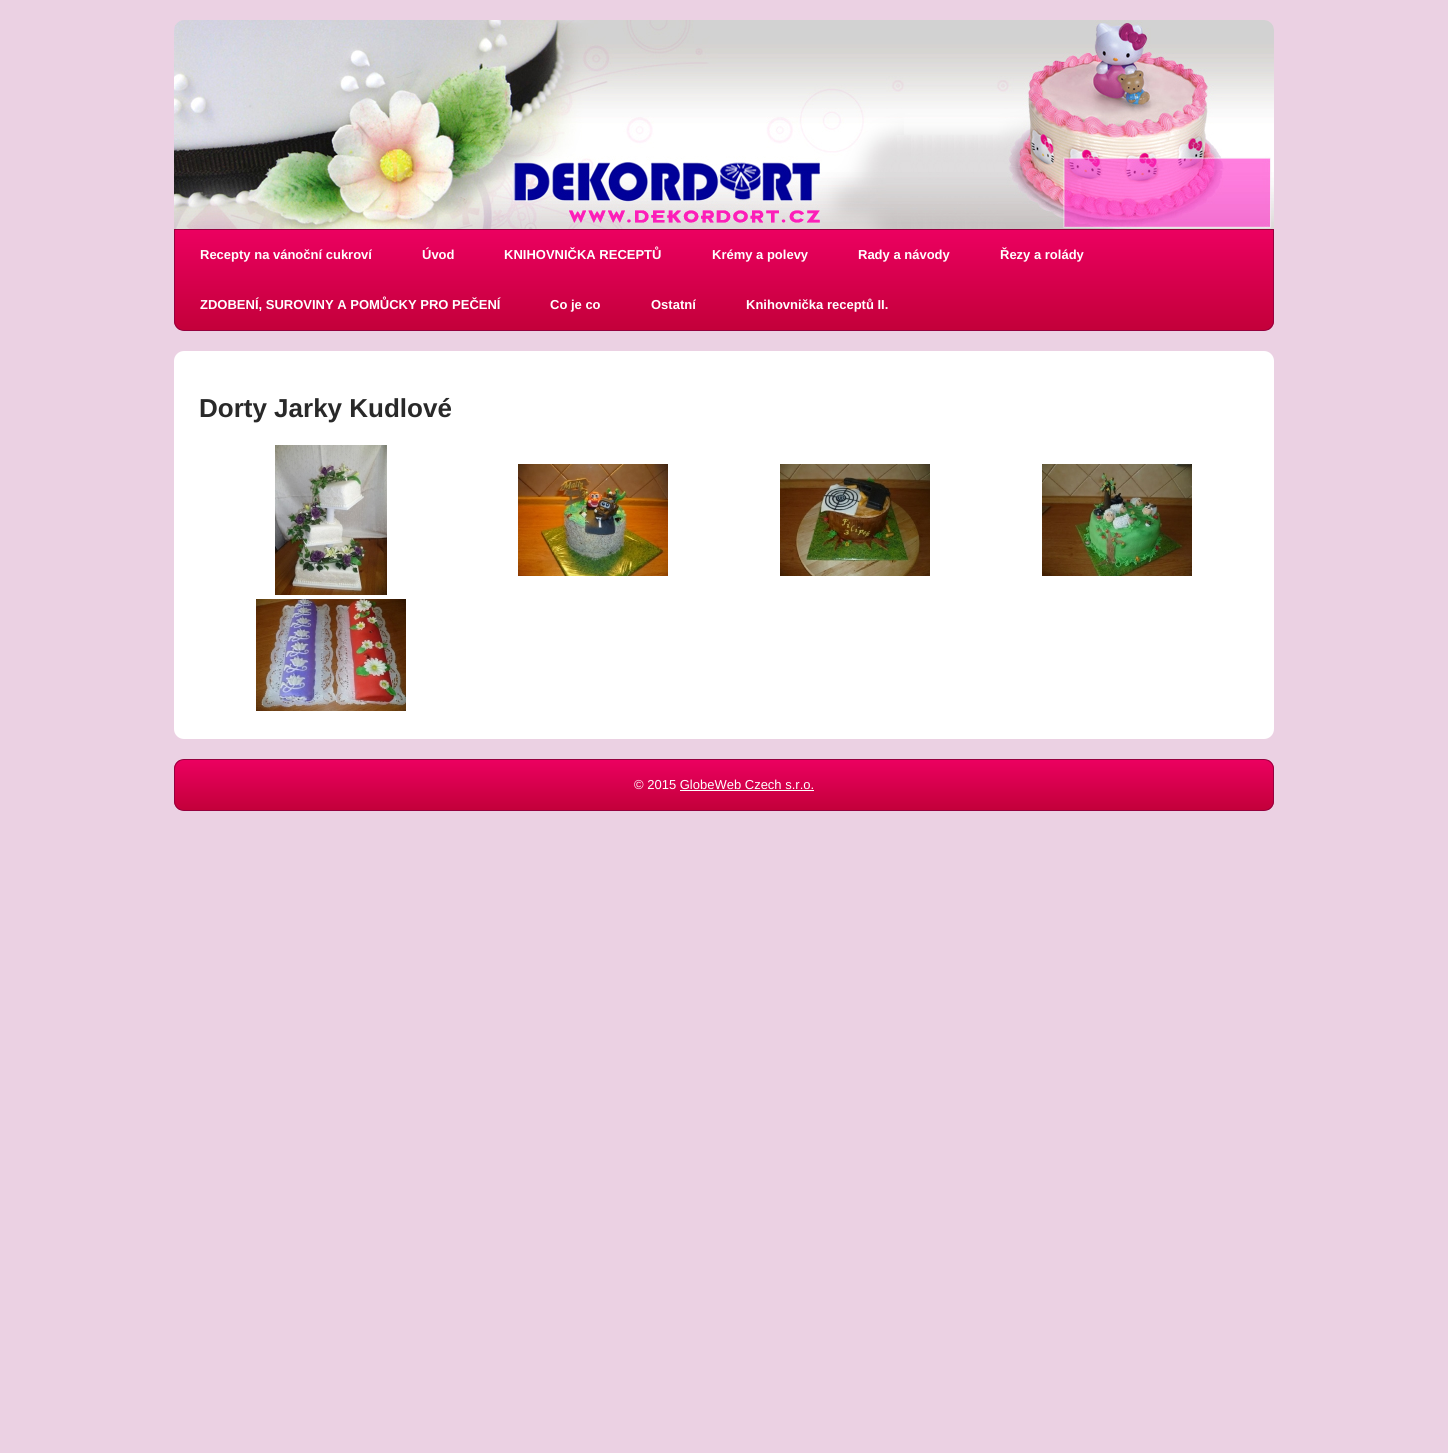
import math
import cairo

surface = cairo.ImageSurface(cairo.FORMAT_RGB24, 1448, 1453)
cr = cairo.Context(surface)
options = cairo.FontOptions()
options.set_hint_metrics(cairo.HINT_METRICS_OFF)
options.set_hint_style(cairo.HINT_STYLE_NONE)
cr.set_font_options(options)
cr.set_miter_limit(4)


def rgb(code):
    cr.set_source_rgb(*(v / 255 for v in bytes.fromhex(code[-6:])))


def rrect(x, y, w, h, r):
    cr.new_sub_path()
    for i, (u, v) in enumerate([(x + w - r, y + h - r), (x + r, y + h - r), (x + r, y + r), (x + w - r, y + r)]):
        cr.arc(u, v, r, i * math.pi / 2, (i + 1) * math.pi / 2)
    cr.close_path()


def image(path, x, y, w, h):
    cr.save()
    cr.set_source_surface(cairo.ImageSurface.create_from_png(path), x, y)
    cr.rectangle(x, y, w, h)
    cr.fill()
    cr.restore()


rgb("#ebd1e3")
cr.paint()
image("img/1.png", 174, 20, 1100, 209)
cr.save()
cr.new_path()
cr.move_to(174, 229)
cr.line_to(1274, 229)
cr.line_to(1274, 321)
cr.curve_to(1274, 326.5, 1269.5, 331, 1264, 331)
cr.line_to(184, 331)
cr.curve_to(178.5, 331, 174, 326.5, 174, 321)
cr.close_path()
cr.clip()
gradient = cairo.LinearGradient(724, 230, 724, 330)
gradient.add_color_stop_rgba(0, 0.922, 0, 0.376, 1)
gradient.add_color_stop_rgba(1, 0.765, 0, 0.227, 1)
cr.set_source(gradient)
cr.rectangle(174, 230, 1100, 100)
cr.fill()
cr.restore()
cr.new_path()
cr.move_to(174.5, 229.5)
cr.line_to(1273.5, 229.5)
cr.line_to(1273.5, 321)
cr.curve_to(1273.5, 326, 1269, 330.5, 1264, 330.5)
cr.line_to(184, 330.5)
cr.curve_to(179, 330.5, 174.5, 326, 174.5, 321)
cr.close_path()
rgb("#96003e")
cr.set_line_width(1)
cr.stroke()
rgb("#ffffff")
rrect(174, 351, 1100, 388, 10)
cr.fill()
image("img/2.png", 275, 445, 112, 150)
image("img/3.png", 518, 464, 150, 112)
image("img/4.png", 780, 464, 150, 112)
image("img/5.png", 1042, 464, 150, 112)
image("img/6.png", 256, 599, 150, 112)
cr.save()
rrect(174, 759, 1100, 52, 10)
cr.clip()
gradient = cairo.LinearGradient(724, 760, 724, 810)
gradient.add_color_stop_rgba(0, 0.922, 0, 0.376, 1)
gradient.add_color_stop_rgba(1, 0.765, 0, 0.227, 1)
cr.set_source(gradient)
cr.rectangle(174, 760, 1100, 50)
cr.fill()
cr.restore()
rrect(174.5, 759.5, 1099, 51, 9.5)
rgb("#96003e")
cr.stroke()
rgb("#ffffff")
cr.rectangle(680, 790, 134, 1)
cr.fill()
cr.select_font_face("Liberation Sans", cairo.FONT_SLANT_NORMAL, cairo.FONT_WEIGHT_BOLD)
cr.set_font_size(13)
for x, y, s in [
    (200, 259, "Recepty na vánoční cukroví"),
    (422, 259, "Úvod"),
    (504, 259, "KNIHOVNIČKA RECEPTŮ"),
    (712, 259, "Krémy a polevy"),
    (858, 259, "Rady a návody"),
    (1000, 259, "Řezy a rolády"),
    (200, 309, "ZDOBENÍ, SUROVINY A POMŮCKY PRO PEČENÍ"),
    (550, 309, "Co je co"),
    (651, 309, "Ostatní"),
    (746, 309, "Knihovnička receptů II."),
]:
    cr.move_to(x, y)
    cr.show_text(s)
cr.set_font_size(26)
rgb("#292929")
cr.move_to(199, 417)
cr.show_text("Dorty Jarky Kudlové")
cr.select_font_face("Liberation Sans")
cr.set_font_size(13)
rgb("#ffffff")
cr.move_to(634, 789)
cr.show_text("© 2015 GlobeWeb Czech s.r.o.")
surface.write_to_png("page.png")
